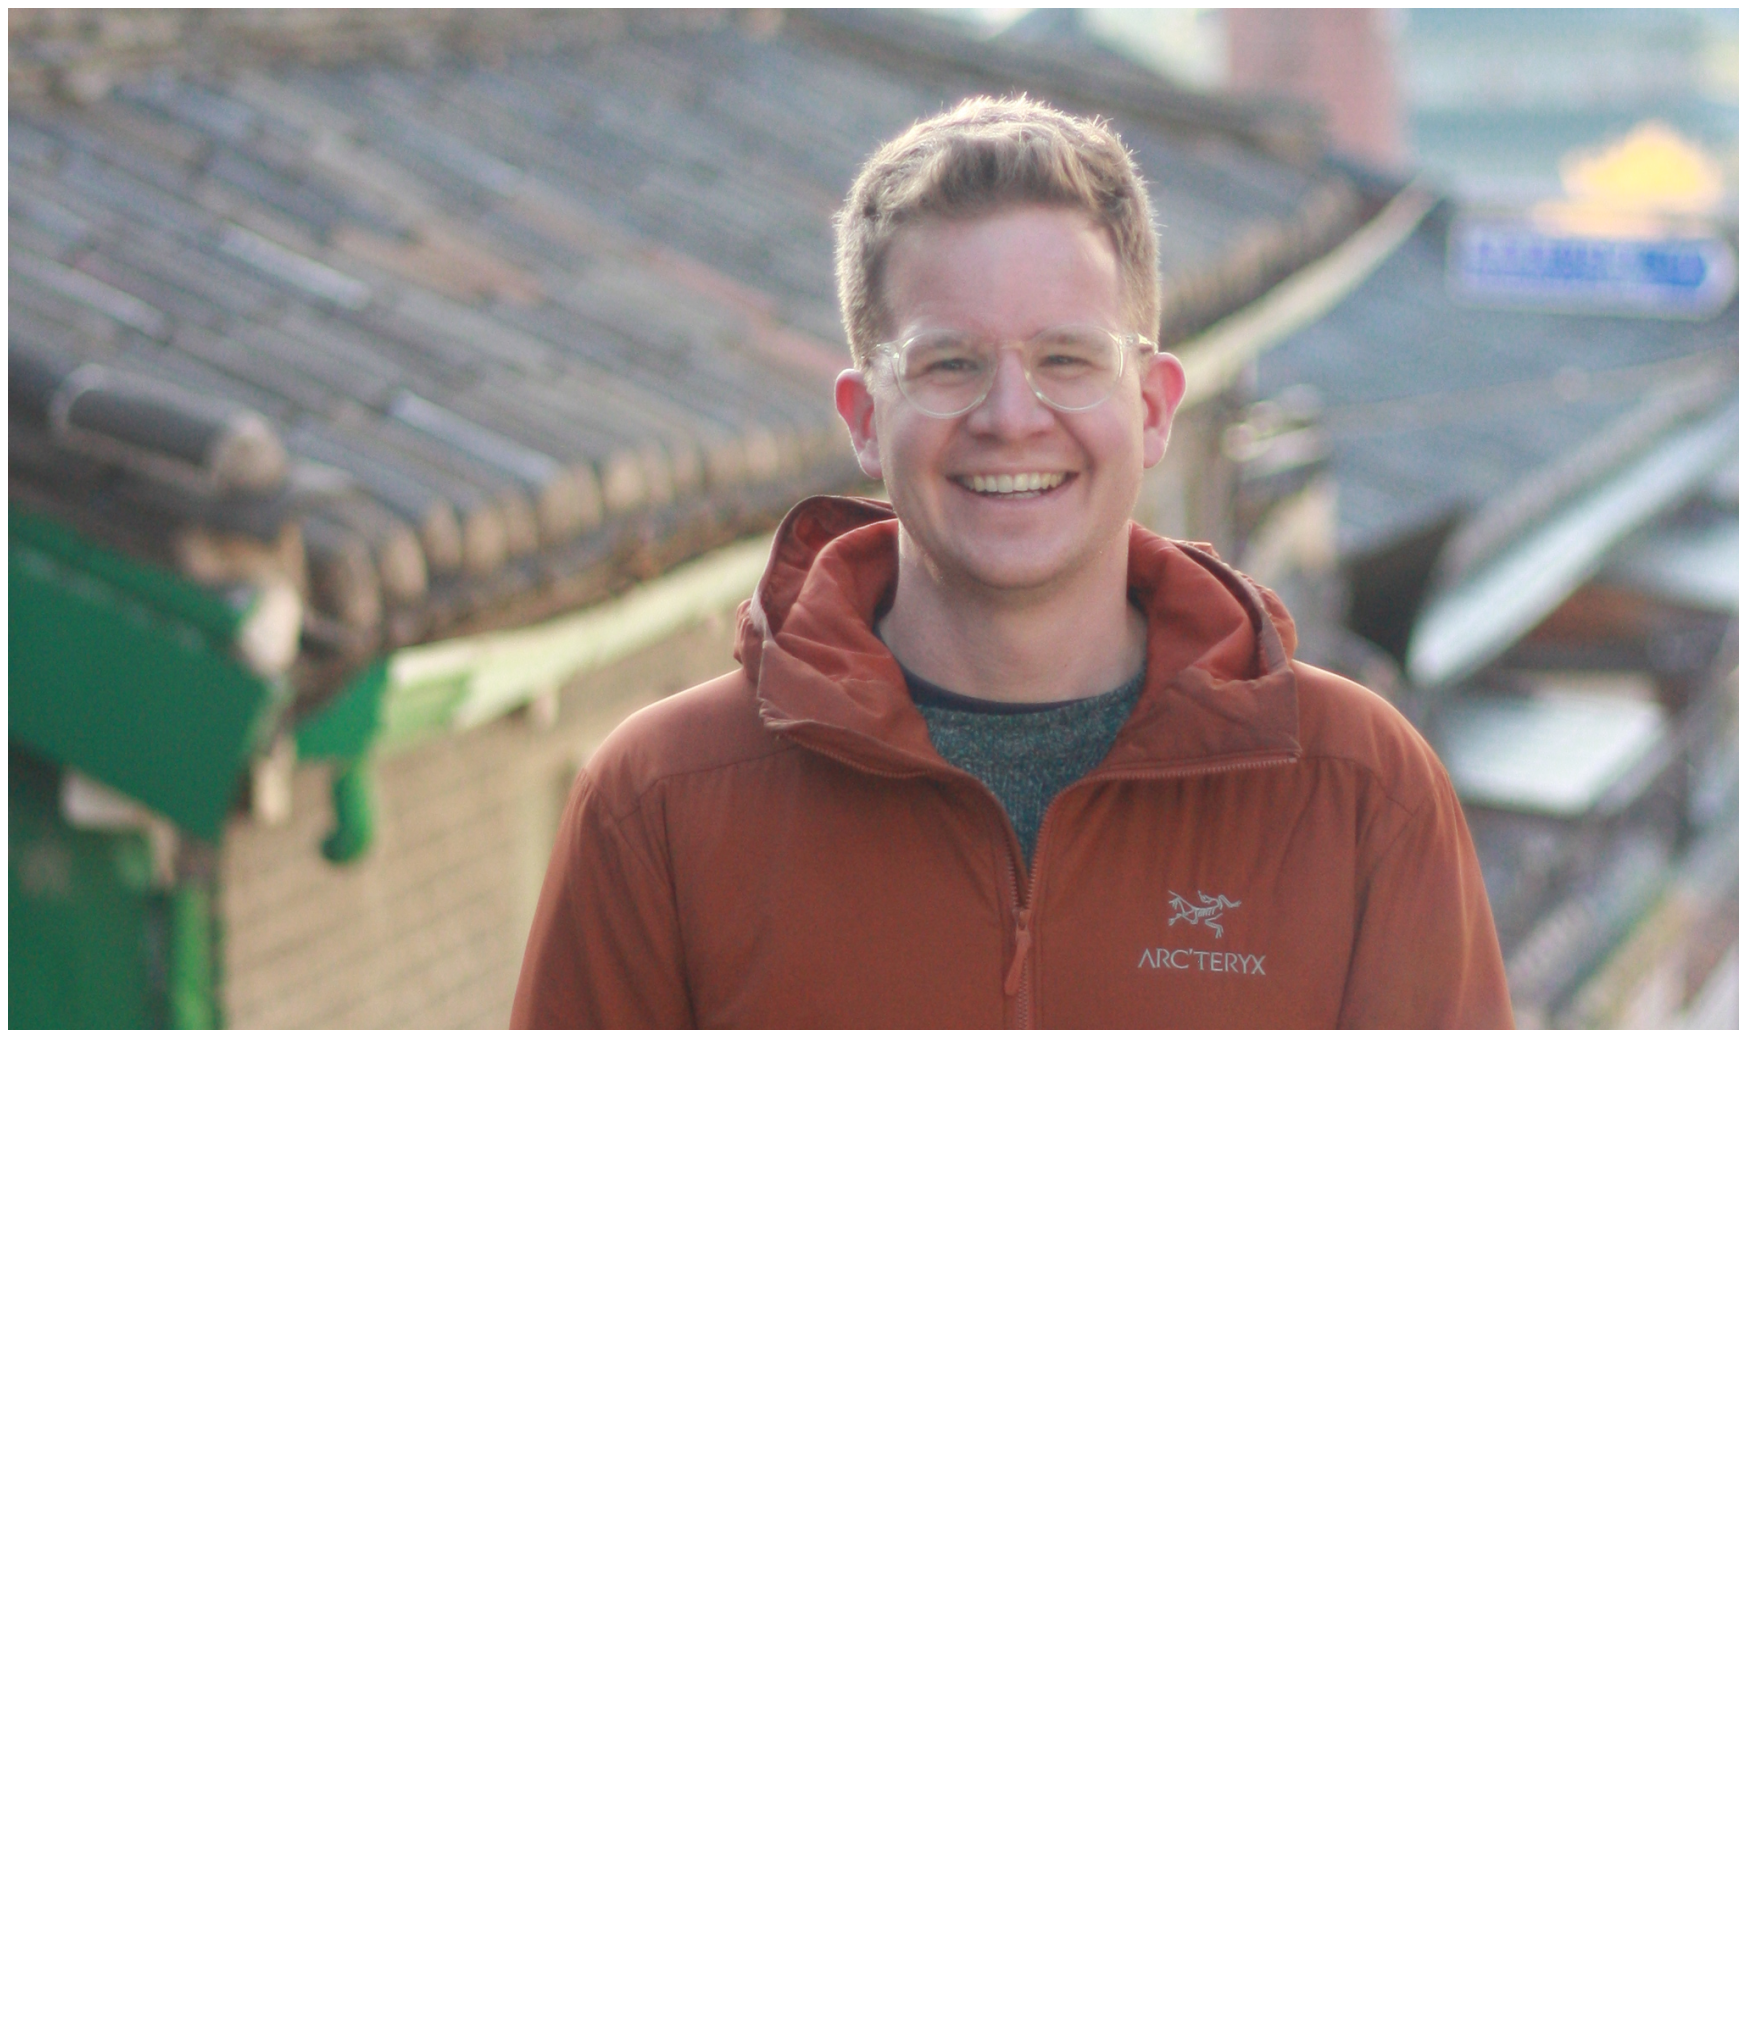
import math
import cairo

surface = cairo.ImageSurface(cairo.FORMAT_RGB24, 1739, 2023)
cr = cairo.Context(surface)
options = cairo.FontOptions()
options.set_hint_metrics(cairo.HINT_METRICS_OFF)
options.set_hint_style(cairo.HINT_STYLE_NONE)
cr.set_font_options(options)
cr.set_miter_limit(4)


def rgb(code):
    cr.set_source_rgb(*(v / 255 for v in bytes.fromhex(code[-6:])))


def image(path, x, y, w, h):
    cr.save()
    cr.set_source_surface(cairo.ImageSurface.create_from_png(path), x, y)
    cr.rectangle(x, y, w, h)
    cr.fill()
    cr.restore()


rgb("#ffffff")
cr.paint()
image("img/1.png", 8, 8, 1731, 1022)
surface.write_to_png("page.png")
